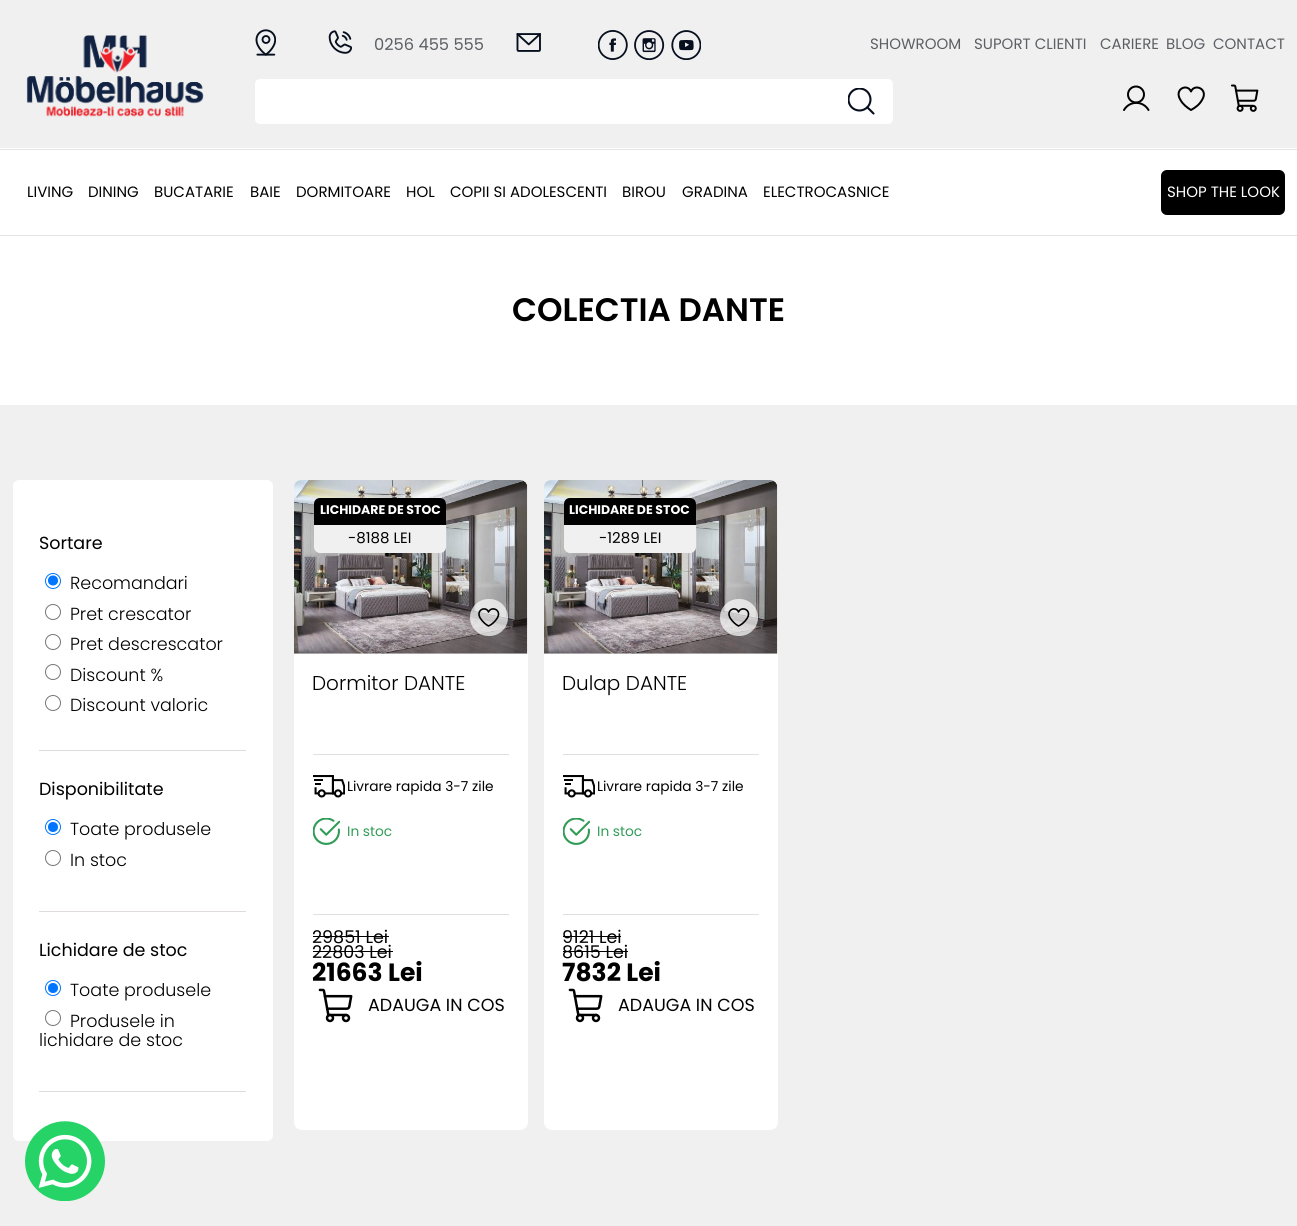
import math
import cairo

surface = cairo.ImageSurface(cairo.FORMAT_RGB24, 1297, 1226)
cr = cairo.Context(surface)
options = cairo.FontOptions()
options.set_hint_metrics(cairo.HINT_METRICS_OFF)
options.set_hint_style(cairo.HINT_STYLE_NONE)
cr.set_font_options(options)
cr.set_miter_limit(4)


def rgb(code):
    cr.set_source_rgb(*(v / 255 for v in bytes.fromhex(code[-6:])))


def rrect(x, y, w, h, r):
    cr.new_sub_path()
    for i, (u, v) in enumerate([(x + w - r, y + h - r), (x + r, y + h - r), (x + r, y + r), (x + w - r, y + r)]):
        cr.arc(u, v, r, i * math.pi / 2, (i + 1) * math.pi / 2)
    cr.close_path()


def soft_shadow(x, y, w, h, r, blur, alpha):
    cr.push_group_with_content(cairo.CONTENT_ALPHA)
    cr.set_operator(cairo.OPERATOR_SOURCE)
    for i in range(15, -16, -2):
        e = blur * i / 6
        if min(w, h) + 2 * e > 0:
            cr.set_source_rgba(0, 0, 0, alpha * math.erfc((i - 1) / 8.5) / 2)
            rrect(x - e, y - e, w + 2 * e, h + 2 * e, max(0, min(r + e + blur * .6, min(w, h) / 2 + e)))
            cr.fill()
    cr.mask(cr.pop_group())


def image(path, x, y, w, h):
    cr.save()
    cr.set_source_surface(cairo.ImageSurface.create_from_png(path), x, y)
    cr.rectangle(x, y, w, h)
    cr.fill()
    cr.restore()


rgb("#ffffff")
cr.paint()
rgb("#f0f0f0")
cr.rectangle(0, 0, 1297, 148)
cr.fill()
image("img/1.png", 26, 35, 178, 82)
image("img/2.png", 255, 29, 21, 27)
image("img/3.png", 328, 30, 25, 24)
image("img/4.png", 516, 33, 25, 19)
image("img/5.png", 598, 30, 30, 30)
image("img/6.png", 634, 30, 31, 30)
image("img/7.png", 671, 30, 30, 30)
rgb("#ffffff")
rrect(255, 79, 638, 45, 5)
cr.fill()
cr.save()
cr.rectangle(848, 88, 27, 27)
cr.clip()
cr.arc(859.5, 99.5, 11, 0, 2 * math.pi)
rgb("#070f1e")
cr.set_line_width(2.1)
cr.stroke()
cr.restore()
cr.new_path()
cr.move_to(867.5, 107.5)
cr.line_to(873.5, 113.5)
rgb("#070f1e")
cr.set_line_width(2.1)
cr.set_line_cap(cairo.LINE_CAP_ROUND)
cr.set_line_join(cairo.LINE_JOIN_ROUND)
cr.stroke()
cr.arc(1136, 94.5, 8, 0, 2 * math.pi)
rgb("#000000")
cr.set_line_width(2)
cr.set_line_cap(cairo.LINE_CAP_BUTT)
cr.set_line_join(cairo.LINE_JOIN_MITER)
cr.stroke()
cr.new_path()
cr.move_to(1124, 110)
cr.curve_to(1129.5, 100.5, 1143, 100.5, 1148.5, 110)
cr.set_line_cap(cairo.LINE_CAP_ROUND)
cr.set_line_join(cairo.LINE_JOIN_ROUND)
cr.stroke()
cr.new_path()
cr.move_to(1191, 110)
cr.curve_to(1187, 107.5, 1183, 104.5, 1180.5, 100)
cr.curve_to(1173.5, 89, 1187.5, 83, 1191, 91.5)
cr.curve_to(1194.5, 83, 1209, 89, 1202, 100)
cr.curve_to(1199.5, 104.5, 1195.5, 107.5, 1191, 110)
cr.close_path()
cr.stroke()
image("img/8.png", 1231, 84, 28, 28)
rgb("#e5e3e3")
cr.rectangle(0, 149, 1297, 1)
cr.fill()
cr.rectangle(0, 235, 1297, 1)
cr.fill()
rgb("#000000")
rrect(1161, 170, 124, 45, 6)
cr.fill()
rgb("#f0f0f0")
cr.rectangle(0, 405, 1297, 821)
cr.fill()
rgb("#ffffff")
rrect(13, 480, 260, 661, 6)
cr.fill()
cr.arc(53, 581, 7.5, 0, 2 * math.pi)
rgb("#0075ff")
cr.set_line_width(1)
cr.set_line_cap(cairo.LINE_CAP_BUTT)
cr.set_line_join(cairo.LINE_JOIN_MITER)
cr.stroke()
cr.arc(53, 580.5, 5, 0, 2 * math.pi)
cr.fill()
cr.arc(53, 612, 7.5, 0, 2 * math.pi)
rgb("#767676")
cr.stroke()
cr.arc(53, 642, 7.5, 0, 2 * math.pi)
cr.stroke()
cr.arc(53, 672, 7.5, 0, 2 * math.pi)
cr.stroke()
cr.arc(53, 703, 7.5, 0, 2 * math.pi)
cr.stroke()
rgb("#e1dcdc")
cr.rectangle(39, 750, 207, 1)
cr.fill()
cr.arc(53, 827, 7.5, 0, 2 * math.pi)
rgb("#0075ff")
cr.stroke()
cr.arc(53, 827, 5, 0, 2 * math.pi)
cr.fill()
cr.arc(53, 858, 7.5, 0, 2 * math.pi)
rgb("#767676")
cr.stroke()
rgb("#e1dcdc")
cr.rectangle(39, 911, 207, 1)
cr.fill()
cr.arc(53, 988, 7.5, 0, 2 * math.pi)
rgb("#0075ff")
cr.stroke()
cr.arc(53, 988, 5, 0, 2 * math.pi)
cr.fill()
cr.arc(53, 1018, 7.5, 0, 2 * math.pi)
rgb("#767676")
cr.stroke()
rgb("#e1dcdc")
cr.rectangle(39, 1091, 207, 1)
cr.fill()
rgb("#ffffff")
rrect(294, 480, 234, 650, 8)
cr.fill()
image("img/9.png", 294, 480, 234, 174)
rgb("#000000")
soft_shadow(318, 500, 132, 55, 6, 4, 0.04)
rgb("#f0f0f0")
rrect(314, 498, 132, 55, 6)
cr.fill()
rgb("#000000")
cr.new_path()
cr.move_to(320, 498)
cr.line_to(440, 498)
cr.curve_to(443.5, 498, 446, 500.5, 446, 504)
cr.line_to(446, 525)
cr.line_to(314, 525)
cr.line_to(314, 504)
cr.curve_to(314, 500.5, 316.5, 498, 320, 498)
cr.close_path()
cr.fill()
cr.set_source_rgba(1, 1, 1, 0.7)
rrect(470, 599, 38, 37, 18.5)
cr.fill()
cr.new_path()
cr.move_to(488.5, 626)
cr.curve_to(485.5, 624.5, 482.5, 621.5, 480.5, 618.5)
cr.curve_to(475, 610, 486, 605.5, 488.5, 612)
cr.curve_to(491.5, 605.5, 502.5, 610, 497, 618.5)
cr.curve_to(495, 621.5, 492, 624.5, 488.5, 626)
cr.close_path()
rgb("#000000")
cr.set_line_width(1.6)
cr.set_line_cap(cairo.LINE_CAP_ROUND)
cr.set_line_join(cairo.LINE_JOIN_ROUND)
cr.stroke()
rgb("#e3dfdf")
cr.rectangle(313, 754, 196, 1)
cr.fill()
image("img/10.png", 313, 775, 32, 23)
image("img/11.png", 313, 818, 27, 27)
for x, y, w, h, color in [
    (313, 914, 196, 1, "#e3dfdf"),
    (313, 936, 76, 1, "#000000"),
    (313, 951, 80, 1, "#000000"),
]:
    rgb(color)
    cr.rectangle(x, y, w, h)
    cr.fill()
image("img/12.png", 318, 988, 35, 35)
rgb("#ffffff")
rrect(544, 480, 234, 650, 8)
cr.fill()
image("img/9.png", 544, 480, 234, 174)
rgb("#000000")
soft_shadow(568, 500, 132, 55, 6, 4, 0.04)
rgb("#f0f0f0")
rrect(564, 498, 132, 55, 6)
cr.fill()
rgb("#000000")
cr.new_path()
cr.move_to(570, 498)
cr.line_to(690, 498)
cr.curve_to(693.5, 498, 696, 500.5, 696, 504)
cr.line_to(696, 525)
cr.line_to(564, 525)
cr.line_to(564, 504)
cr.curve_to(564, 500.5, 566.5, 498, 570, 498)
cr.close_path()
cr.fill()
cr.set_source_rgba(1, 1, 1, 0.7)
rrect(720, 599, 38, 37, 18.5)
cr.fill()
cr.new_path()
cr.move_to(738.5, 626)
cr.curve_to(735.5, 624.5, 732.5, 621.5, 730.5, 618.5)
cr.curve_to(725, 610, 736, 605.5, 738.5, 612)
cr.curve_to(741.5, 605.5, 752.5, 610, 747, 618.5)
cr.curve_to(745, 621.5, 742, 624.5, 738.5, 626)
cr.close_path()
rgb("#000000")
cr.stroke()
rgb("#e3dfdf")
cr.rectangle(563, 754, 196, 1)
cr.fill()
image("img/10.png", 563, 775, 32, 23)
image("img/11.png", 563, 818, 27, 27)
for x, y, w, h, color in [
    (563, 914, 196, 1, "#e3dfdf"),
    (563, 936, 58, 1, "#000000"),
    (563, 951, 65, 1, "#000000"),
]:
    rgb(color)
    cr.rectangle(x, y, w, h)
    cr.fill()
image("img/12.png", 568, 988, 35, 35)
image("img/13.png", 25, 1121, 80, 80)
cr.select_font_face("Poppins")
cr.set_font_size(16.25)
rgb("#5c5f63")
cr.move_to(374, 50)
cr.show_text("0256 455 555")
cr.set_font_size(15)
for x, y, s in [
    (870, 49, "SHOWROOM"),
    (974, 49, "SUPORT CLIENTI"),
    (1100, 49, "CARIERE"),
    (1166, 49, "BLOG"),
    (1213, 49, "CONTACT"),
]:
    cr.move_to(x, y)
    cr.show_text(s)
rgb("#000000")
for x, y, s in [
    (27, 197, "LIVING"),
    (88, 197, "DINING"),
    (154, 197, "BUCATARIE"),
    (250, 197, "BAIE"),
    (296, 197, "DORMITOARE"),
    (406, 197, "HOL"),
    (450, 197, "COPII SI ADOLESCENTI"),
    (622, 197, "BIROU"),
    (682, 197, "GRADINA"),
    (763, 197, "ELECTROCASNICE"),
]:
    cr.move_to(x, y)
    cr.show_text(s)
rgb("#ffffff")
cr.move_to(1167, 197)
cr.show_text("SHOP THE LOOK")
cr.select_font_face("Poppins SemiBold")
cr.set_font_size(32.5)
rgb("#000000")
cr.move_to(512, 321)
cr.show_text("COLECTIA DANTE")
cr.select_font_face("Poppins")
cr.set_font_size(17.5)
cr.move_to(39, 549)
cr.show_text("Sortare")
cr.select_font_face("Poppins Light")
for x, y, s in [
    (70, 589, "Recomandari"),
    (70, 620, "Pret crescator"),
    (70, 650, "Pret descrescator"),
    (70, 681, "Discount %"),
    (70, 711, "Discount valoric"),
]:
    cr.move_to(x, y)
    cr.show_text(s)
cr.select_font_face("Poppins")
cr.move_to(39, 795)
cr.show_text("Disponibilitate")
cr.select_font_face("Poppins Light")
cr.move_to(70, 835)
cr.show_text("Toate produsele")
cr.move_to(70, 866)
cr.show_text("In stoc")
cr.select_font_face("Poppins")
cr.move_to(39, 956)
cr.show_text("Lichidare de stoc")
cr.select_font_face("Poppins Light")
for x, y, s in [
    (70, 996, "Toate produsele"),
    (70, 1027, "Produsele in"),
    (39, 1046, "lichidare de stoc"),
]:
    cr.move_to(x, y)
    cr.show_text(s)
cr.select_font_face("Poppins", cairo.FONT_SLANT_NORMAL, cairo.FONT_WEIGHT_BOLD)
cr.set_font_size(12.5)
rgb("#ffffff")
cr.move_to(320, 514)
cr.show_text("LICHIDARE DE STOC")
cr.select_font_face("Poppins")
cr.set_font_size(15)
rgb("#000000")
cr.move_to(348, 543)
cr.show_text("-8188 LEI")
cr.select_font_face("Poppins Light")
cr.set_font_size(20)
cr.move_to(312, 690)
cr.show_text("Dormitor DANTE")
cr.select_font_face("Poppins")
cr.set_font_size(13.75)
cr.move_to(347, 791)
cr.show_text("Livrare rapida 3-7 zile")
rgb("#319c57")
cr.move_to(347, 836)
cr.show_text("In stoc")
cr.set_font_size(17.5)
rgb("#000000")
cr.move_to(312, 943)
cr.show_text("29851 Lei")
cr.move_to(312, 958)
cr.show_text("22803 Lei")
cr.select_font_face("Poppins", cairo.FONT_SLANT_NORMAL, cairo.FONT_WEIGHT_BOLD)
cr.set_font_size(25)
cr.move_to(312, 981)
cr.show_text("21663 Lei")
cr.select_font_face("Poppins")
cr.set_font_size(17.5)
cr.move_to(368, 1011)
cr.show_text("ADAUGA IN COS")
cr.select_font_face("Poppins", cairo.FONT_SLANT_NORMAL, cairo.FONT_WEIGHT_BOLD)
cr.set_font_size(12.5)
rgb("#ffffff")
cr.move_to(569, 514)
cr.show_text("LICHIDARE DE STOC")
cr.select_font_face("Poppins")
cr.set_font_size(15)
rgb("#000000")
cr.move_to(599, 543)
cr.show_text("-1289 LEI")
cr.select_font_face("Poppins Light")
cr.set_font_size(20)
cr.move_to(562, 690)
cr.show_text("Dulap DANTE")
cr.select_font_face("Poppins")
cr.set_font_size(13.75)
cr.move_to(597, 791)
cr.show_text("Livrare rapida 3-7 zile")
rgb("#319c57")
cr.move_to(597, 836)
cr.show_text("In stoc")
cr.set_font_size(17.5)
rgb("#000000")
cr.move_to(562, 943)
cr.show_text("9121 Lei")
cr.move_to(562, 958)
cr.show_text("8615 Lei")
cr.select_font_face("Poppins", cairo.FONT_SLANT_NORMAL, cairo.FONT_WEIGHT_BOLD)
cr.set_font_size(25)
cr.move_to(562, 981)
cr.show_text("7832 Lei")
cr.select_font_face("Poppins")
cr.set_font_size(17.5)
cr.move_to(618, 1011)
cr.show_text("ADAUGA IN COS")
surface.write_to_png("page.png")
